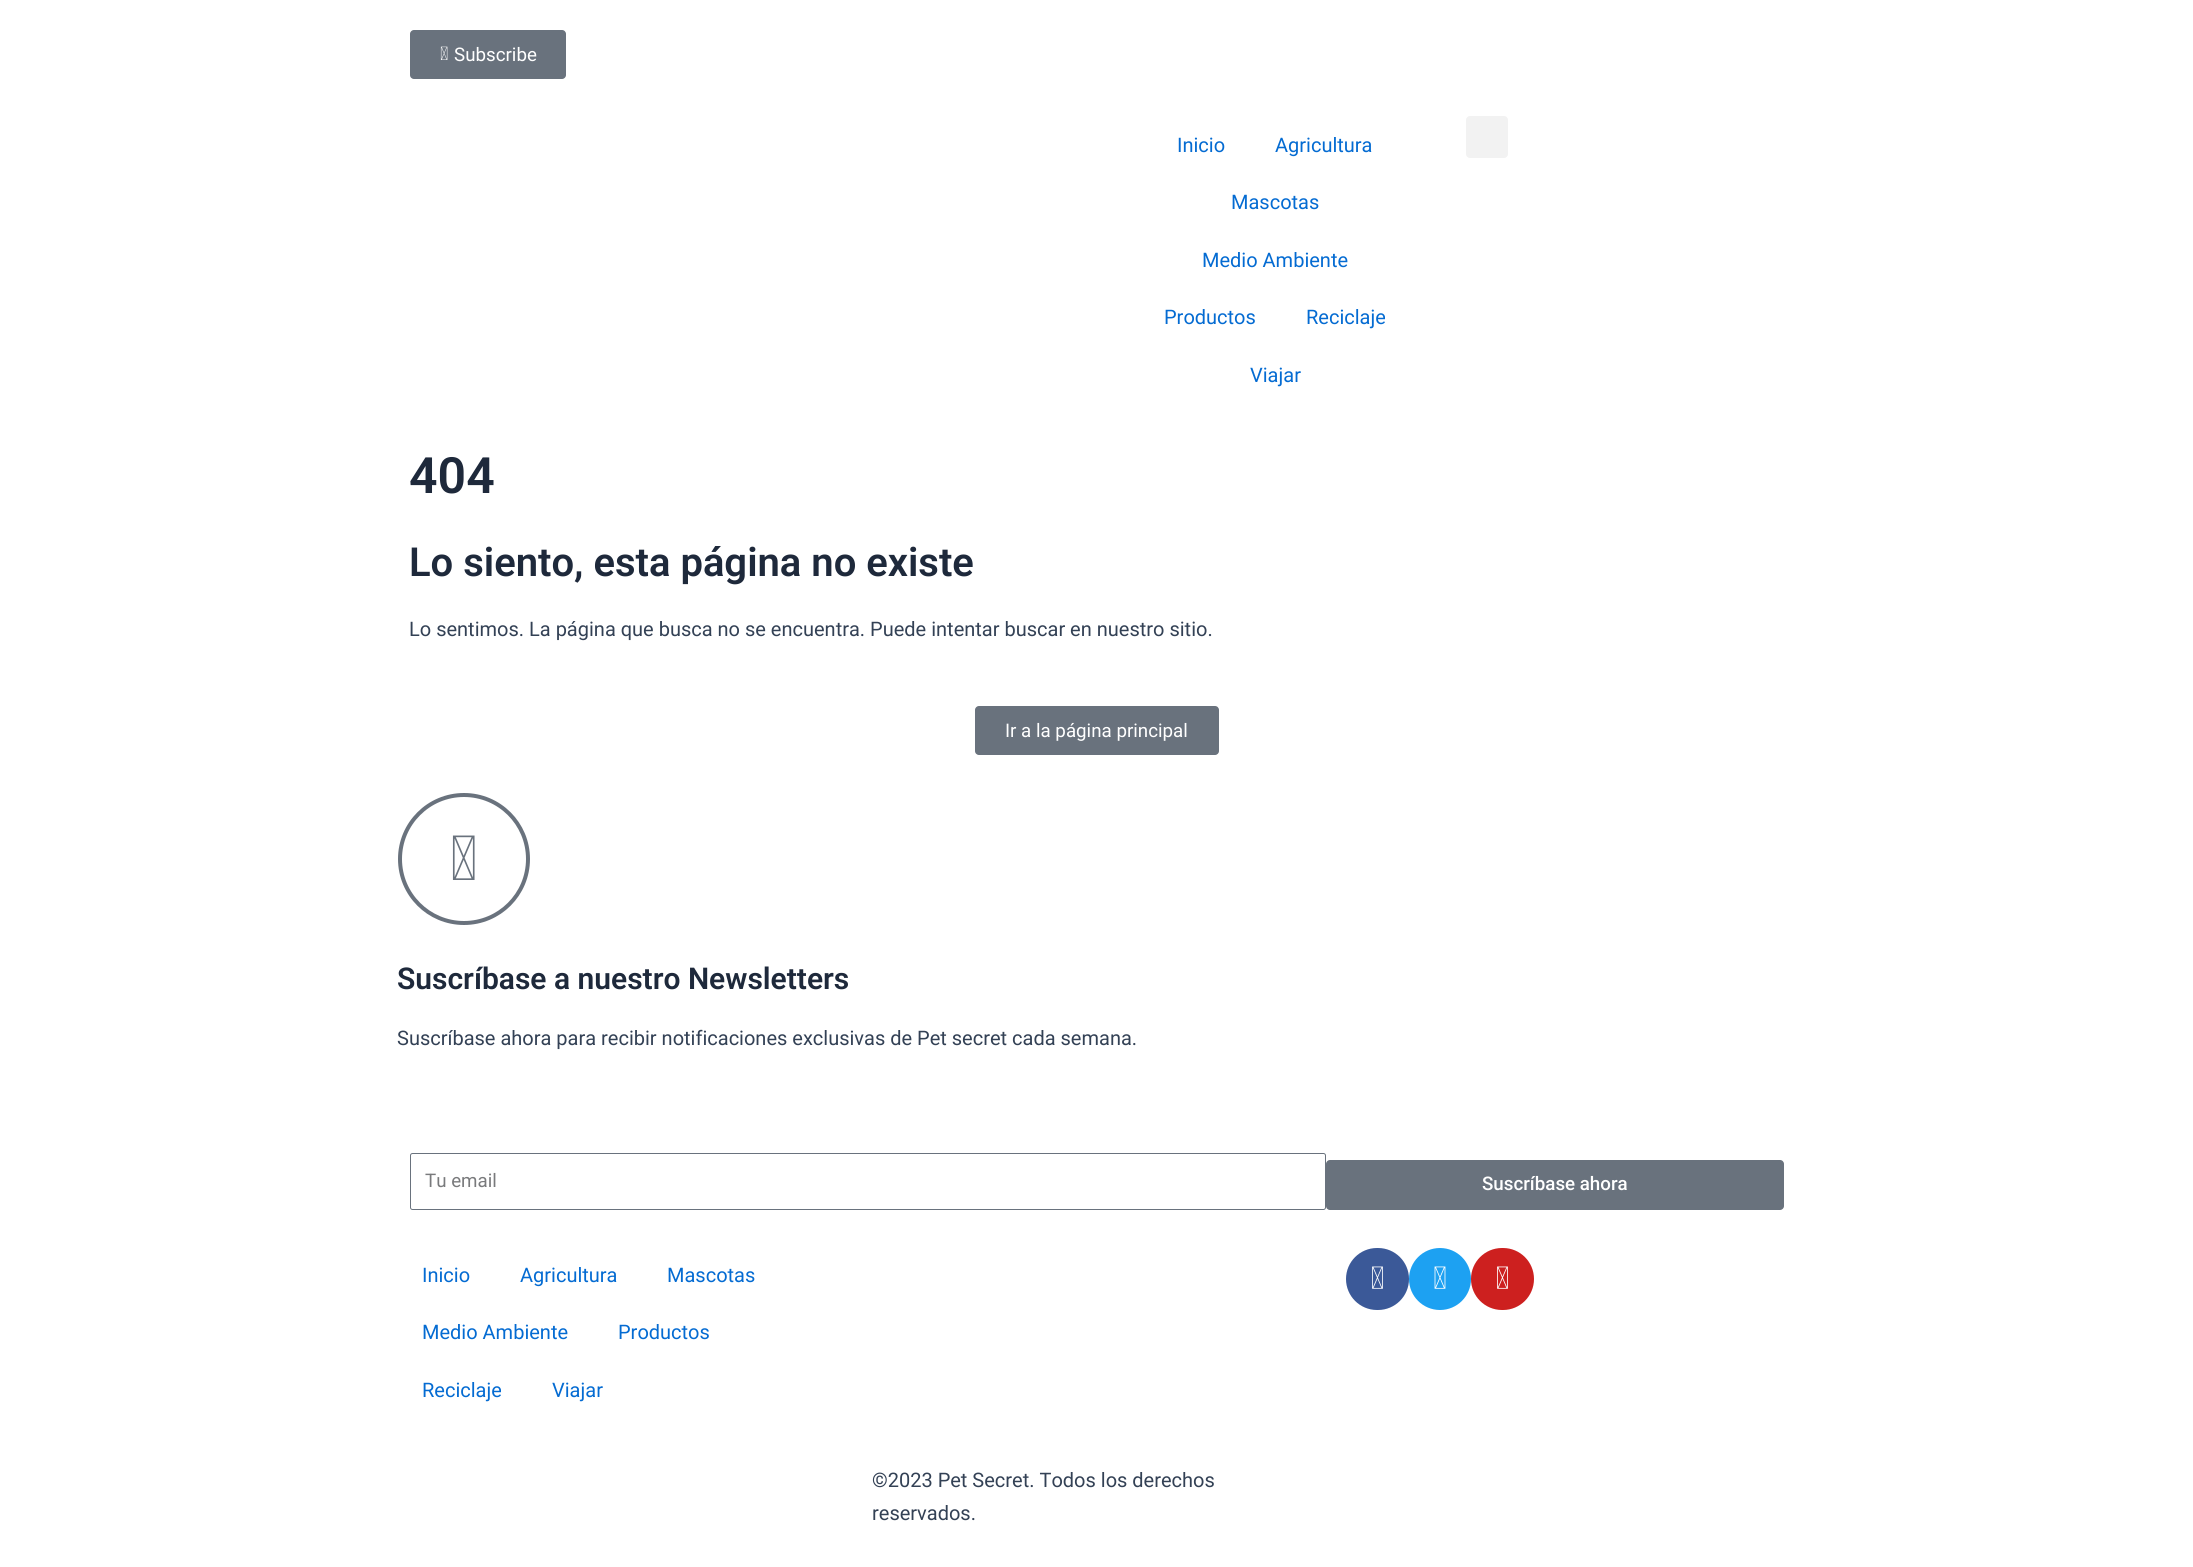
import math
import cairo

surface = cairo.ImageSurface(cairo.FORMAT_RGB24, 2193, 1567)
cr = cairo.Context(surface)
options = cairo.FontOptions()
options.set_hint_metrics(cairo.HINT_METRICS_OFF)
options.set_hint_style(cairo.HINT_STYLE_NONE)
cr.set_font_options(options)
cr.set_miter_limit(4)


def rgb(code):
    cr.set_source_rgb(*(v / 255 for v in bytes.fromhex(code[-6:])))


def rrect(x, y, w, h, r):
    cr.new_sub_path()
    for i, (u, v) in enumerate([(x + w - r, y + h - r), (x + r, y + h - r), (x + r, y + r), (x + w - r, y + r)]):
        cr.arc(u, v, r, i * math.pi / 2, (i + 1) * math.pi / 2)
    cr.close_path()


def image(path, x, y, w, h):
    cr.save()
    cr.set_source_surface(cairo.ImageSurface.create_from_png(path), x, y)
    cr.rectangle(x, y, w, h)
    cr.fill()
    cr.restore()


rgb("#ffffff")
cr.paint()
rgb("#69727d")
rrect(410, 30, 156, 49, 4)
cr.fill()
image("img/1.png", 440, 46, 8, 14)
rgb("#f2f2f2")
rrect(1466, 116, 42, 42, 4)
cr.fill()
rgb("#69727d")
rrect(975, 706, 244, 49, 4)
cr.fill()
cr.arc(464, 859, 64, 0, 2 * math.pi)
cr.set_line_width(4)
cr.stroke()
image("img/2.png", 452, 835, 23, 45)
rrect(410.5, 1153.5, 915, 56, 2)
cr.set_line_width(1)
cr.stroke()
rrect(1326, 1160, 458, 50, 4)
cr.fill()
rgb("#3b5998")
rrect(1346, 1248, 63, 62, 31)
cr.fill()
image("img/3.png", 1372, 1266, 11, 23)
rgb("#1da1f2")
cr.arc(1440, 1279, 31, 0, 2 * math.pi)
cr.fill()
image("img/4.png", 1434, 1266, 12, 23)
rgb("#cd201f")
rrect(1471, 1248, 63, 62, 31)
cr.fill()
image("img/5.png", 1497, 1266, 11, 23)
cr.select_font_face("Roboto")
cr.set_font_size(18.75)
rgb("#ffffff")
cr.move_to(454, 61)
cr.show_text("Subscribe")
cr.set_font_size(20)
rgb("#046bd2")
for x, y, s in [
    (1177, 152, "Inicio"),
    (1275, 152, "Agricultura"),
    (1231, 209, "Mascotas"),
    (1202, 267, "Medio Ambiente"),
    (1164, 324, "Productos"),
    (1306, 324, "Reciclaje"),
    (1250, 382, "Viajar"),
]:
    cr.move_to(x, y)
    cr.show_text(s)
cr.select_font_face("Roboto SemiBold")
cr.set_font_size(50)
rgb("#1e293b")
cr.move_to(409, 493)
cr.show_text("404")
cr.set_font_size(40)
cr.move_to(409, 576)
cr.show_text("Lo siento, esta página no existe")
cr.select_font_face("Roboto")
cr.set_font_size(20)
rgb("#334155")
cr.move_to(409, 636)
cr.show_text("Lo sentimos. La página que busca no se encuentra. Puede intentar buscar en nuestro sitio.")
cr.set_font_size(18.75)
rgb("#ffffff")
cr.move_to(1005, 737)
cr.show_text("Ir a la página principal")
cr.select_font_face("Roboto SemiBold")
cr.set_font_size(30)
rgb("#1e293b")
cr.move_to(397, 989)
cr.show_text("Suscríbase a nuestro Newsletters")
cr.select_font_face("Roboto")
cr.set_font_size(20)
rgb("#334155")
cr.move_to(397, 1045)
cr.show_text("Suscríbase ahora para recibir notificaciones exclusivas de Pet secret cada semana.")
cr.set_font_size(18.75)
rgb("#797a7c")
cr.move_to(425, 1187)
cr.show_text("Tu email")
cr.select_font_face("Roboto Medium")
rgb("#ffffff")
cr.move_to(1482, 1190)
cr.show_text("Suscríbase ahora")
cr.select_font_face("Roboto")
cr.set_font_size(20)
rgb("#046bd2")
for x, y, s in [
    (422, 1282, "Inicio"),
    (520, 1282, "Agricultura"),
    (667, 1282, "Mascotas"),
    (422, 1339, "Medio Ambiente"),
    (618, 1339, "Productos"),
    (422, 1397, "Reciclaje"),
    (552, 1397, "Viajar"),
]:
    cr.move_to(x, y)
    cr.show_text(s)
rgb("#334155")
cr.move_to(872, 1487)
cr.show_text("©2023 Pet Secret. Todos los derechos")
cr.move_to(872, 1520)
cr.show_text("reservados.")
surface.write_to_png("page.png")
